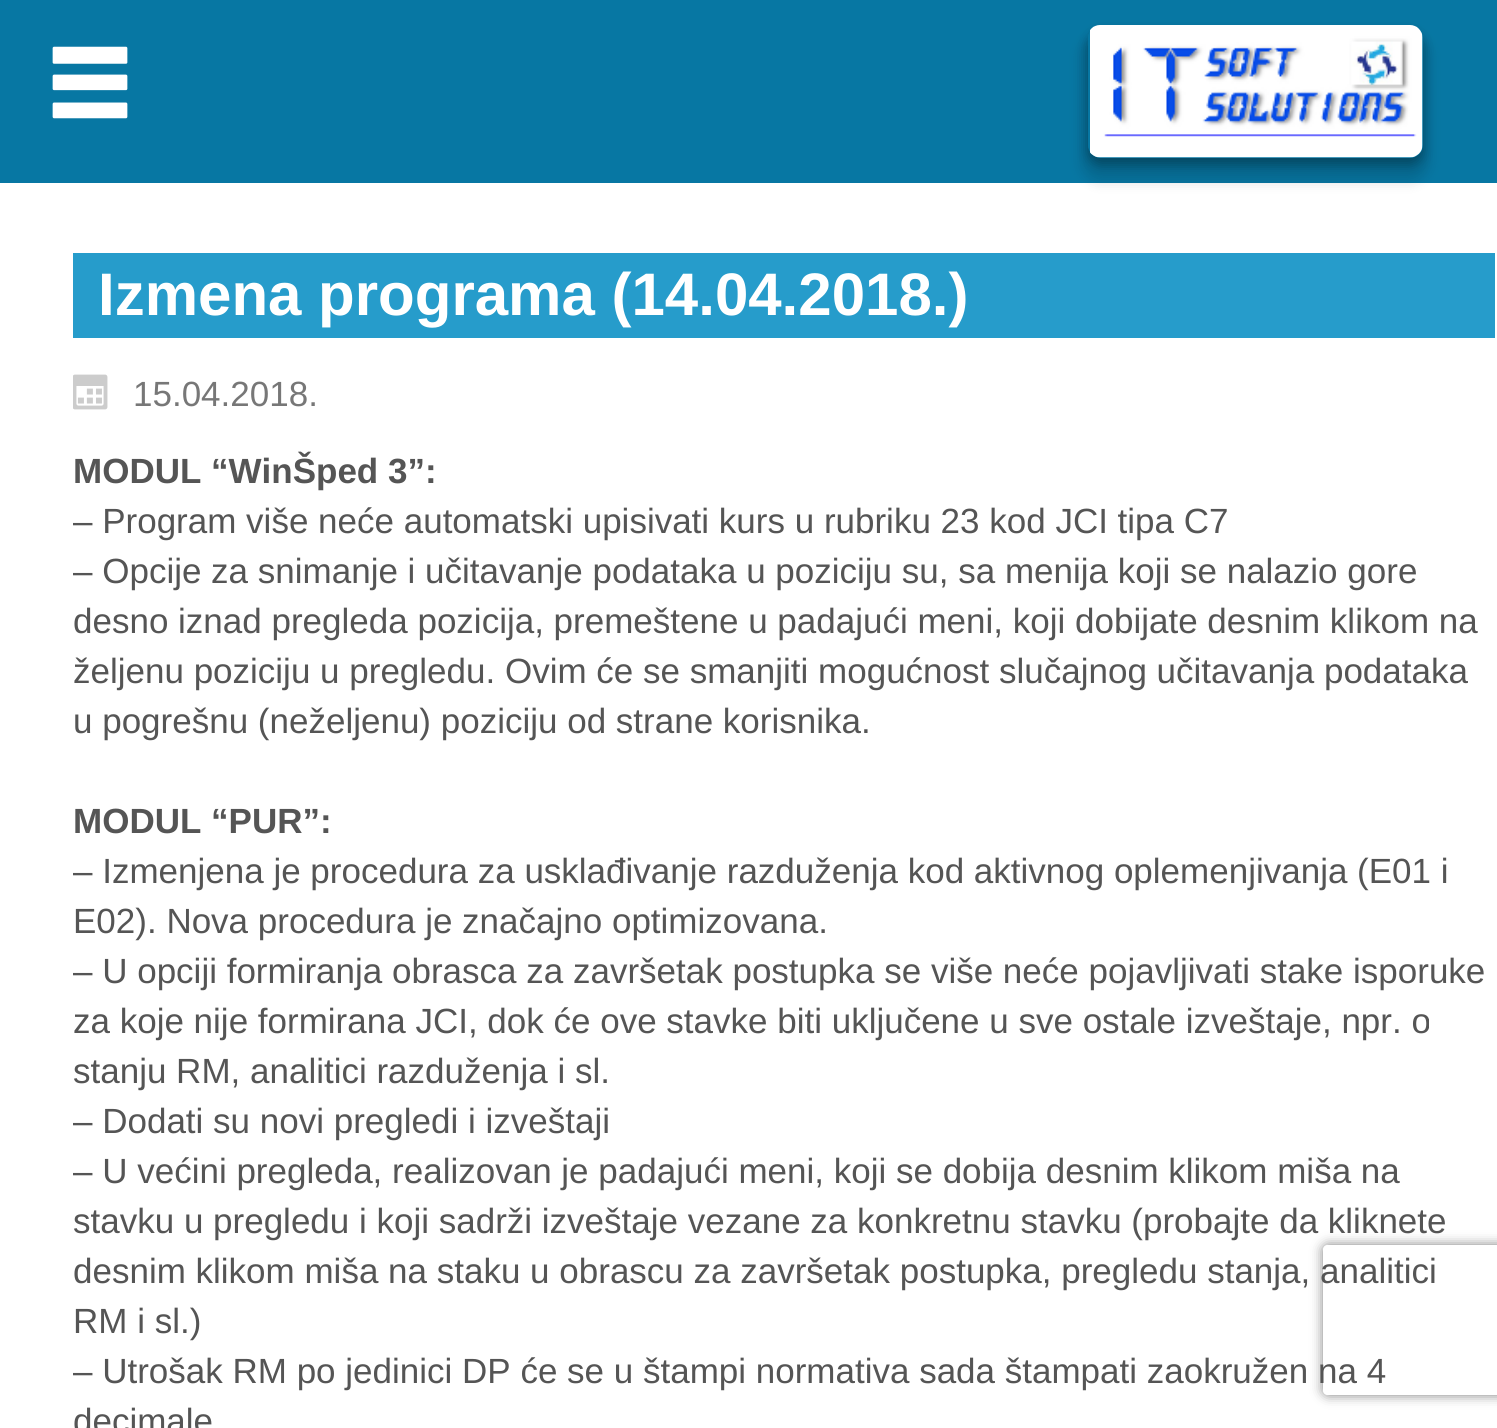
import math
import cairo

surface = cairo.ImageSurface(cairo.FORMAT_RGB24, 1497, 1428)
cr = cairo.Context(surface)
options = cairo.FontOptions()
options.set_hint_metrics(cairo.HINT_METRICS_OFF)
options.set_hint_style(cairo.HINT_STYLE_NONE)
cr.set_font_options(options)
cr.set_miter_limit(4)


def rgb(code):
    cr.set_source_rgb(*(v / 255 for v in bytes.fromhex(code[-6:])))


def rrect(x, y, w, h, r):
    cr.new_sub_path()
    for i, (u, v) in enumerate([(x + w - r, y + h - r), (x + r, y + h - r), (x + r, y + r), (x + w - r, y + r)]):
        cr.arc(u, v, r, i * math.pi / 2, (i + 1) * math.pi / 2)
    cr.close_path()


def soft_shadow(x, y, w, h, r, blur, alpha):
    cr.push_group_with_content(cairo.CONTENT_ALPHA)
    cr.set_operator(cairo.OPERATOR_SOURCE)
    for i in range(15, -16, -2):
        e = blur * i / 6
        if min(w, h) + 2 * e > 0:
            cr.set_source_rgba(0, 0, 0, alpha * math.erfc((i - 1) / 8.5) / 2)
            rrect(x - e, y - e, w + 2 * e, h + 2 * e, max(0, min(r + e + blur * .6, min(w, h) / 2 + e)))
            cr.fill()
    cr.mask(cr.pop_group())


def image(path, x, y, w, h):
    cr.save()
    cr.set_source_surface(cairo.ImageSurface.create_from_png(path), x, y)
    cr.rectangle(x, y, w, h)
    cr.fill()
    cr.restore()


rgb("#ffffff")
cr.paint()
rgb("#0777a3")
cr.rectangle(0, 0, 1497, 183)
cr.fill()
image("img/1.png", 52, 46, 76, 73)
cr.save()
cr.set_fill_rule(cairo.FILL_RULE_EVEN_ODD)
cr.new_path()
cr.move_to(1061, 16)
cr.line_to(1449, 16)
cr.line_to(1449, 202)
cr.line_to(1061, 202)
cr.close_path()
cr.move_to(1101, 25)
cr.line_to(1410, 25)
cr.curve_to(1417, 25, 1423, 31, 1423, 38)
cr.line_to(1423, 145)
cr.curve_to(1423, 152, 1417, 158, 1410, 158)
cr.line_to(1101, 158)
cr.curve_to(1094, 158, 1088, 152, 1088, 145)
cr.line_to(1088, 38)
cr.curve_to(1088, 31, 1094, 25, 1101, 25)
cr.close_path()
cr.clip()
rgb("#000000")
soft_shadow(1080, 35, 350, 148, 20, 6, 0.11)
cr.restore()
cr.save()
cr.set_fill_rule(cairo.FILL_RULE_EVEN_ODD)
cr.new_path()
cr.move_to(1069, 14)
cr.line_to(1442, 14)
cr.line_to(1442, 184)
cr.line_to(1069, 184)
cr.close_path()
cr.move_to(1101, 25)
cr.line_to(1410, 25)
cr.curve_to(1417, 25, 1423, 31, 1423, 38)
cr.line_to(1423, 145)
cr.curve_to(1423, 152, 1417, 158, 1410, 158)
cr.line_to(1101, 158)
cr.curve_to(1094, 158, 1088, 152, 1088, 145)
cr.line_to(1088, 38)
cr.curve_to(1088, 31, 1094, 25, 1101, 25)
cr.close_path()
cr.clip()
rgb("#000000")
soft_shadow(1088, 33, 335, 132, 13, 6, 0.33)
cr.restore()
image("img/2.png", 1090, 25, 333, 133)
rgb("#269ccb")
cr.rectangle(73, 253, 1422, 85)
cr.fill()
image("img/3.png", 73, 374, 35, 36)
cr.save()
cr.set_fill_rule(cairo.FILL_RULE_EVEN_ODD)
cr.new_path()
cr.move_to(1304, 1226)
cr.line_to(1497, 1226)
cr.line_to(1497, 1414)
cr.line_to(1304, 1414)
cr.close_path()
cr.move_to(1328, 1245)
cr.line_to(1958, 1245)
cr.curve_to(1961, 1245, 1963, 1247, 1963, 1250)
cr.line_to(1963, 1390)
cr.curve_to(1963, 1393, 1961, 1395, 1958, 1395)
cr.line_to(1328, 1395)
cr.curve_to(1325, 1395, 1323, 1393, 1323, 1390)
cr.line_to(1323, 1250)
cr.curve_to(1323, 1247, 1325, 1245, 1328, 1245)
cr.close_path()
cr.clip()
rgb("#808080")
soft_shadow(1323, 1245, 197, 150, 5, 6, 1)
cr.restore()
cr.select_font_face("Liberation Sans", cairo.FONT_SLANT_NORMAL, cairo.FONT_WEIGHT_BOLD)
cr.set_font_size(60)
rgb("#ffffff")
cr.move_to(98, 315)
cr.show_text("Izmena programa (14.04.2018.)")
cr.select_font_face("Liberation Sans")
cr.set_font_size(35)
rgb("#777777")
cr.move_to(133, 406)
cr.show_text("15.04.2018.")
cr.select_font_face("Liberation Sans", cairo.FONT_SLANT_NORMAL, cairo.FONT_WEIGHT_BOLD)
rgb("#555555")
cr.move_to(73, 483)
cr.show_text("MODUL “WinŠped 3”:")
cr.save()
cr.rectangle(73, 445, 1422, 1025)
cr.clip()
cr.select_font_face("Liberation Sans")
cr.move_to(73, 533)
cr.show_text("– Program više neće automatski upisivati kurs u rubriku 23 kod JCI tipa C7")
cr.move_to(73, 583)
cr.show_text("– Opcije za snimanje i učitavanje podataka u poziciju su, sa menija koji se nalazio gore")
cr.restore()
cr.select_font_face("Liberation Sans")
for x, y, s in [
    (73, 633, "desno iznad pregleda pozicija, premeštene u padajući meni, koji dobijate desnim klikom na"),
    (73, 683, "željenu poziciju u pregledu. Ovim će se smanjiti mogućnost slučajnog učitavanja podataka"),
    (73, 733, "u pogrešnu (neželjenu) poziciju od strane korisnika."),
]:
    cr.move_to(x, y)
    cr.show_text(s)
cr.select_font_face("Liberation Sans", cairo.FONT_SLANT_NORMAL, cairo.FONT_WEIGHT_BOLD)
cr.move_to(73, 833)
cr.show_text("MODUL “PUR”:")
cr.save()
cr.rectangle(73, 445, 1422, 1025)
cr.clip()
cr.select_font_face("Liberation Sans")
cr.move_to(73, 883)
cr.show_text("– Izmenjena je procedura za usklađivanje razduženja kod aktivnog oplemenjivanja (E01 i")
cr.restore()
cr.select_font_face("Liberation Sans")
cr.move_to(73, 933)
cr.show_text("E02). Nova procedura je značajno optimizovana.")
cr.save()
cr.rectangle(73, 445, 1422, 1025)
cr.clip()
cr.move_to(73, 983)
cr.show_text("– U opciji formiranja obrasca za završetak postupka se više neće pojavljivati stake isporuke")
cr.restore()
cr.move_to(73, 1033)
cr.show_text("za koje nije formirana JCI, dok će ove stavke biti uključene u sve ostale izveštaje, npr. o")
cr.move_to(73, 1083)
cr.show_text("stanju RM, analitici razduženja i sl.")
cr.save()
cr.rectangle(73, 445, 1422, 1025)
cr.clip()
cr.move_to(73, 1133)
cr.show_text("– Dodati su novi pregledi i izveštaji")
cr.move_to(73, 1183)
cr.show_text("– U većini pregleda, realizovan je padajući meni, koji se dobija desnim klikom miša na")
cr.restore()
for x, y, s in [
    (73, 1233, "stavku u pregledu i koji sadrži izveštaje vezane za konkretnu stavku (probajte da kliknete"),
    (73, 1283, "desnim klikom miša na staku u obrascu za završetak postupka, pregledu stanja, analitici"),
    (73, 1333, "RM i sl.)"),
]:
    cr.move_to(x, y)
    cr.show_text(s)
cr.save()
cr.rectangle(73, 445, 1422, 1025)
cr.clip()
cr.move_to(73, 1383)
cr.show_text("– Utrošak RM po jedinici DP će se u štampi normativa sada štampati zaokružen na 4")
cr.restore()
cr.move_to(73, 1433)
cr.show_text("decimale")
surface.write_to_png("page.png")
